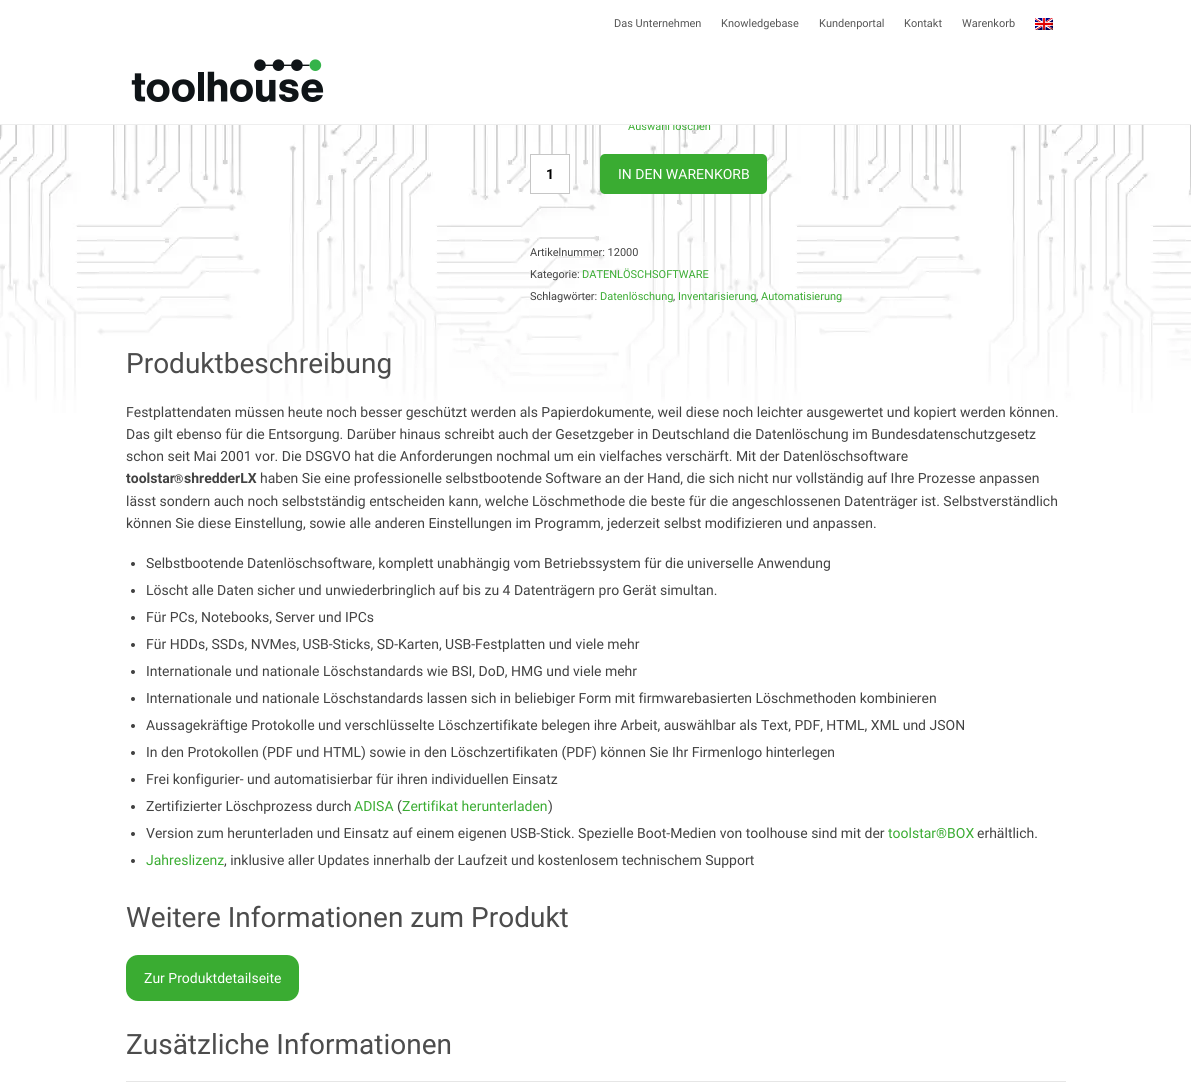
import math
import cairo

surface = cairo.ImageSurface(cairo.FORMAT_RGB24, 1191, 1086)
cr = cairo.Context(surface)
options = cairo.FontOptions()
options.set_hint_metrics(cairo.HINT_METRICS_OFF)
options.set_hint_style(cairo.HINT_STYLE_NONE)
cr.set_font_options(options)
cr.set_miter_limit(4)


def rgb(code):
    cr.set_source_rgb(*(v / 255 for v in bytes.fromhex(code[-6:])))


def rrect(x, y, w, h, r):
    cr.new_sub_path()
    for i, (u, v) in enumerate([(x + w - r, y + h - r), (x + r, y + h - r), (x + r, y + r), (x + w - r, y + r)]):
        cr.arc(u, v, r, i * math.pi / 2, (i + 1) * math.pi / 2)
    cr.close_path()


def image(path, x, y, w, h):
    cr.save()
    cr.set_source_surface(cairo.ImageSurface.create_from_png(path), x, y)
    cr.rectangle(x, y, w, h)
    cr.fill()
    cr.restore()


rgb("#ffffff")
cr.paint()
image("img/1.png", 1035, 18, 18, 12)
image("img/2.png", 131, 59, 193, 43)
image("img/3.png", 0, 125, 1191, 288)
rgb("#ffffff")
cr.rectangle(530.5, 154.5, 39, 39)
cr.fill_preserve()
rgb("#c6c6c6")
cr.set_line_width(1)
cr.stroke()
rgb("#3aac32")
rrect(600, 154, 167, 40, 5)
cr.fill()
rgb("#424242")
cr.arc(133, 564, 2, 0, 2 * math.pi)
cr.fill()
cr.arc(133, 591, 2, 0, 2 * math.pi)
cr.fill()
cr.arc(133, 618, 2, 0, 2 * math.pi)
cr.fill()
cr.arc(133, 645, 2, 0, 2 * math.pi)
cr.fill()
cr.arc(133, 672, 2, 0, 2 * math.pi)
cr.fill()
cr.arc(133, 699, 2, 0, 2 * math.pi)
cr.fill()
cr.arc(133, 726, 2, 0, 2 * math.pi)
cr.fill()
cr.arc(133, 753, 2, 0, 2 * math.pi)
cr.fill()
cr.arc(133, 780, 2, 0, 2 * math.pi)
cr.fill()
cr.arc(133, 807, 2, 0, 2 * math.pi)
cr.fill()
cr.arc(133, 834, 2, 0, 2 * math.pi)
cr.fill()
cr.arc(133, 861, 2, 0, 2 * math.pi)
cr.fill()
rgb("#3aac32")
rrect(126, 955, 173, 46, 12)
cr.fill()
rgb("#e6e6e6")
cr.rectangle(126, 1081, 940, 1)
cr.fill()
cr.select_font_face("Roboto")
cr.set_font_size(11)
rgb("#555555")
for x, y, s in [
    (614, 27, "Das Unternehmen"),
    (721, 27, "Knowledgebase"),
    (819, 27, "Kundenportal"),
    (904, 27, "Kontakt"),
    (962, 27, "Warenkorb"),
]:
    cr.move_to(x, y)
    cr.show_text(s)
rgb("#3aac32")
cr.move_to(628, 130)
cr.show_text("Auswahl löschen")
rgb("#eeeeee")
cr.rectangle(0, 124, 1191, 1)
cr.fill()
rgb("#ffffff")
cr.rectangle(630, 121, 65, 3)
cr.fill()
cr.select_font_face("Roboto", cairo.FONT_SLANT_NORMAL, cairo.FONT_WEIGHT_BOLD)
cr.set_font_size(14)
rgb("#000000")
cr.move_to(546, 179)
cr.show_text("1")
cr.select_font_face("Roboto")
rgb("#ffffff")
cr.move_to(618, 179)
cr.show_text("IN DEN WARENKORB")
cr.set_font_size(11)
rgb("#424242")
cr.move_to(530, 256)
cr.show_text("Artikelnummer: 12000")
cr.move_to(530, 278)
cr.show_text("Kategorie:")
rgb("#3aac32")
cr.move_to(582, 278)
cr.show_text("DATENLÖSCHSOFTWARE")
rgb("#424242")
cr.move_to(530, 300)
cr.show_text("Schlagwörter:")
rgb("#3aac32")
cr.move_to(600, 300)
cr.show_text("Datenlöschung")
rgb("#424242")
cr.move_to(673, 300)
cr.show_text(",")
rgb("#3aac32")
cr.move_to(678, 300)
cr.show_text("Inventarisierung")
rgb("#424242")
cr.move_to(756, 300)
cr.show_text(",")
rgb("#3aac32")
cr.move_to(761, 300)
cr.show_text("Automatisierung")
cr.set_font_size(28)
rgb("#4c4c4c")
cr.move_to(126, 373)
cr.show_text("Produktbeschreibung")
cr.set_font_size(14)
rgb("#424242")
for x, y, s in [
    (126, 417, "Festplattendaten müssen heute noch besser geschützt werden als Papierdokumente, weil diese noch leichter ausgewertet und kopiert werden können."),
    (126, 439, "Das gilt ebenso für die Entsorgung. Darüber hinaus schreibt auch der Gesetzgeber in Deutschland die Datenlöschung im Bundesdatenschutzgesetz"),
    (126, 461, "schon seit Mai 2001 vor. Die DSGVO hat die Anforderungen nochmal um ein vielfaches verschärft. Mit der Datenlöschsoftware"),
]:
    cr.move_to(x, y)
    cr.show_text(s)
cr.select_font_face("Roboto", cairo.FONT_SLANT_NORMAL, cairo.FONT_WEIGHT_BOLD)
cr.move_to(126, 483)
cr.show_text("toolstar")
cr.set_font_size(12)
cr.move_to(174, 483)
cr.show_text("®")
cr.set_font_size(14)
cr.move_to(184, 483)
cr.show_text("shredderLX")
cr.select_font_face("Roboto")
for x, y, s in [
    (260, 483, "haben Sie eine professionelle selbstbootende Software an der Hand, die sich nicht nur vollständig auf Ihre Prozesse anpassen"),
    (126, 506, "lässt sondern auch noch selbstständig entscheiden kann, welche Löschmethode die beste für die angeschlossenen Datenträger ist. Selbstverständlich"),
    (126, 528, "können Sie diese Einstellung, sowie alle anderen Einstellungen im Programm, jederzeit selbst modifizieren und anpassen."),
    (146, 568, "Selbstbootende Datenlöschsoftware, komplett unabhängig vom Betriebssystem für die universelle Anwendung"),
    (146, 595, "Löscht alle Daten sicher und unwiederbringlich auf bis zu 4 Datenträgern pro Gerät simultan."),
    (146, 622, "Für PCs, Notebooks, Server und IPCs"),
    (146, 649, "Für HDDs, SSDs, NVMes, USB-Sticks, SD-Karten, USB-Festplatten und viele mehr"),
    (146, 676, "Internationale und nationale Löschstandards wie BSI, DoD, HMG und viele mehr"),
    (146, 703, "Internationale und nationale Löschstandards lassen sich in beliebiger Form mit firmwarebasierten Löschmethoden kombinieren"),
    (146, 730, "Aussagekräftige Protokolle und verschlüsselte Löschzertifikate belegen ihre Arbeit, auswählbar als Text, PDF, HTML, XML und JSON"),
    (146, 757, "In den Protokollen (PDF und HTML) sowie in den Löschzertifikaten (PDF) können Sie Ihr Firmenlogo hinterlegen"),
    (146, 784, "Frei konfigurier- und automatisierbar für ihren individuellen Einsatz"),
    (146, 811, "Zertifizierter Löschprozess durch"),
]:
    cr.move_to(x, y)
    cr.show_text(s)
rgb("#3aac32")
cr.move_to(354, 811)
cr.show_text("ADISA")
rgb("#424242")
cr.move_to(397, 811)
cr.show_text("(")
rgb("#3aac32")
cr.move_to(402, 811)
cr.show_text("Zertifikat herunterladen")
rgb("#424242")
cr.move_to(548, 811)
cr.show_text(")")
cr.move_to(146, 838)
cr.show_text("Version zum herunterladen und Einsatz auf einem eigenen USB-Stick. Spezielle Boot-Medien von toolhouse sind mit der")
rgb("#3aac32")
cr.move_to(888, 838)
cr.show_text("toolstar®BOX")
rgb("#424242")
cr.move_to(977, 838)
cr.show_text("erhältlich.")
rgb("#3aac32")
cr.move_to(146, 865)
cr.show_text("Jahreslizenz")
rgb("#424242")
cr.move_to(224, 865)
cr.show_text(", inklusive aller Updates innerhalb der Laufzeit und kostenlosem technischem Support")
cr.set_font_size(28)
rgb("#4c4c4c")
cr.move_to(126, 927)
cr.show_text("Weitere Informationen zum Produkt")
cr.set_font_size(14)
rgb("#ffffff")
cr.move_to(144, 983)
cr.show_text("Zur Produktdetailseite")
cr.set_font_size(28)
rgb("#4c4c4c")
cr.move_to(126, 1054)
cr.show_text("Zusätzliche Informationen")
surface.write_to_png("page.png")
